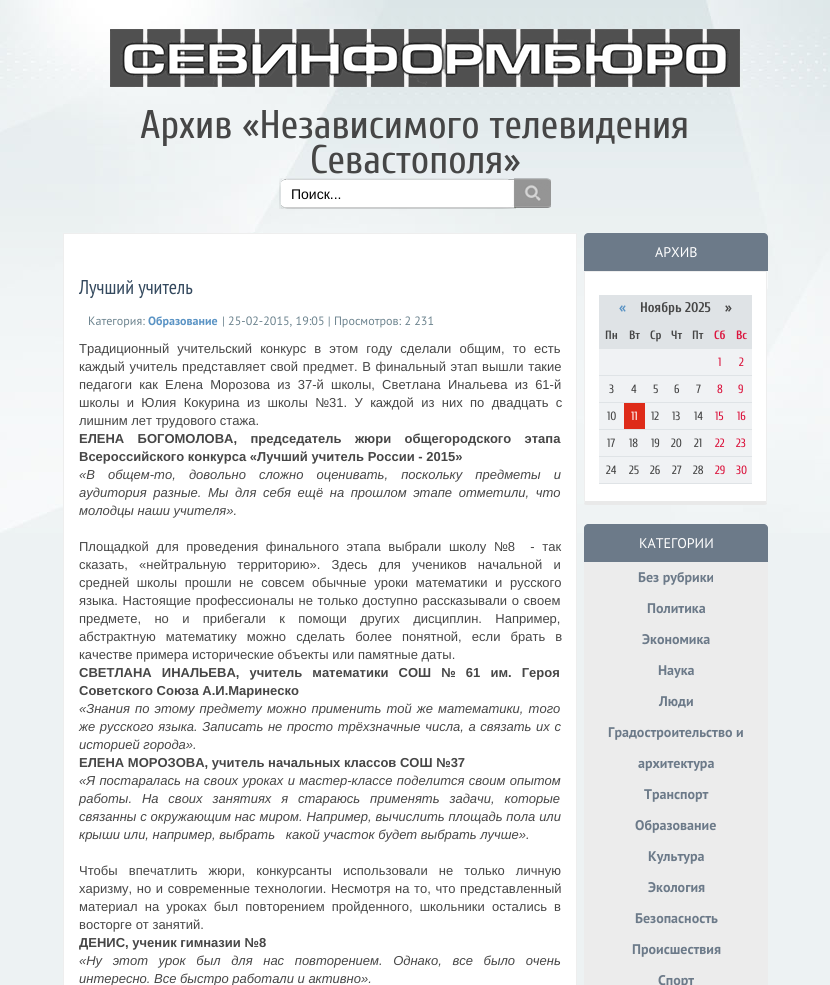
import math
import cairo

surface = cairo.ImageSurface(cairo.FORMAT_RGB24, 830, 985)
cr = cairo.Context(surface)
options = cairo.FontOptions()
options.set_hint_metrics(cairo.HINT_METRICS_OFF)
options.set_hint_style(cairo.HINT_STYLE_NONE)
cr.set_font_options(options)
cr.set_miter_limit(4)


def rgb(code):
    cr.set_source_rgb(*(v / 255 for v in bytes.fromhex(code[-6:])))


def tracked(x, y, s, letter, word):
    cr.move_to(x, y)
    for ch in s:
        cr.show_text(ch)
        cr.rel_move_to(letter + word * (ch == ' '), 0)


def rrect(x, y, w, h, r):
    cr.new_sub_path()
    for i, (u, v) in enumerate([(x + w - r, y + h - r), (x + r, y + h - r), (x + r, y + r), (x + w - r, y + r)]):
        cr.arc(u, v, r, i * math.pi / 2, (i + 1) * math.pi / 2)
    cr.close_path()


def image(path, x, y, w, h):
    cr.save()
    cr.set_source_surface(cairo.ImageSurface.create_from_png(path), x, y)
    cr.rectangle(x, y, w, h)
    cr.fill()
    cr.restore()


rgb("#edf2f3")
cr.paint()
image("img/1.png", 0, 0, 830, 533)
image("img/2.png", 110, 29, 630, 58)
image("img/3.png", 279, 178, 237, 31)
image("img/4.png", 514, 178, 37, 30)
rgb("#ffffff")
cr.rectangle(63.5, 233.5, 513, 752)
cr.fill_preserve()
rgb("#eeeeee")
cr.set_line_width(1)
cr.stroke()
rgb("#f8fafb")
rrect(584, 233, 184, 58, 4)
cr.fill()
rgb("#6c7a89")
cr.new_path()
cr.move_to(588, 233)
cr.line_to(764, 233)
cr.curve_to(766, 233, 768, 235, 768, 237)
cr.line_to(768, 271)
cr.line_to(584, 271)
cr.line_to(584, 237)
cr.curve_to(584, 235, 586, 233, 588, 233)
cr.close_path()
cr.fill()
rgb("#ffffff")
cr.rectangle(585, 272, 181, 229)
cr.fill()
rgb("#eeeeee")
cr.new_path()
cr.move_to(584, 271)
cr.line_to(585, 272)
cr.line_to(766, 272)
cr.line_to(767, 271)
cr.close_path()
cr.fill()
cr.new_path()
cr.move_to(767, 271)
cr.line_to(766, 272)
cr.line_to(766, 501)
cr.line_to(767, 504)
cr.line_to(767, 502)
cr.close_path()
cr.fill()
rgb("#e9e9e9")
cr.new_path()
cr.move_to(587, 505)
cr.line_to(764, 505)
cr.curve_to(765, 505, 766, 505, 767, 504)
cr.line_to(766, 501)
cr.line_to(585, 501)
cr.line_to(584, 504)
cr.curve_to(585, 505, 586, 505, 587, 505)
cr.close_path()
cr.fill()
rgb("#eeeeee")
cr.new_path()
cr.move_to(585, 272)
cr.line_to(584, 271)
cr.line_to(584, 504)
cr.line_to(585, 501)
cr.close_path()
cr.fill()
for x, y, w, h, color in [
    (599, 295, 153, 27, "#dfe3e6"),
    (599, 322, 153, 27, "#dfe3e6"),
    (599, 349, 153, 26, "#f0f2f4"),
    (599, 375, 153, 1, "#dfe3e6"),
    (599, 376, 153, 26, "#f0f2f4"),
    (599, 402, 153, 1, "#dfe3e6"),
    (599, 403, 153, 26, "#f0f2f4"),
    (599, 429, 153, 1, "#dfe3e6"),
    (624, 403, 21, 26, "#de2b19"),
    (599, 430, 153, 26, "#f0f2f4"),
    (599, 456, 153, 1, "#dfe3e6"),
    (599, 457, 153, 26, "#f0f2f4"),
    (599, 483, 153, 1, "#dfe3e6"),
]:
    rgb(color)
    cr.rectangle(x, y, w, h)
    cr.fill()
rgb("#6c7a89")
cr.new_path()
cr.move_to(588, 524)
cr.line_to(764, 524)
cr.curve_to(766, 524, 768, 526, 768, 528)
cr.line_to(768, 562)
cr.line_to(584, 562)
cr.line_to(584, 528)
cr.curve_to(584, 526, 586, 524, 588, 524)
cr.close_path()
cr.fill()
rgb("#ececec")
cr.rectangle(584, 562, 184, 423)
cr.fill()
cr.select_font_face("Cuprum")
cr.set_font_size(40)
rgb("#464646")
cr.move_to(140, 138)
cr.show_text("Архив «Независимого телевидения")
cr.move_to(310, 173)
cr.show_text("Севастополя»")
cr.select_font_face("Liberation Sans")
cr.set_font_size(14)
rgb("#000000")
cr.move_to(291, 199)
cr.show_text("Поиск...")
cr.select_font_face("PT Sans Narrow")
cr.set_font_size(20)
rgb("#34495e")
cr.move_to(79, 294)
cr.show_text("Лучший учитель")
cr.select_font_face("PT Sans")
cr.set_font_size(12.1)
rgb("#6c838e")
cr.move_to(88, 325)
cr.show_text("Категория:")
cr.select_font_face("PT Sans", cairo.FONT_SLANT_NORMAL, cairo.FONT_WEIGHT_BOLD)
cr.set_font_size(12)
rgb("#5a93c4")
cr.move_to(148, 325)
cr.show_text("Образование")
cr.select_font_face("PT Sans")
cr.set_font_size(12.1)
rgb("#6c838e")
cr.move_to(222, 325)
cr.show_text("| 25-02-2015, 19:05 | Просмотров: 2 231")
cr.select_font_face("Liberation Sans")
cr.set_font_size(13)
rgb("#464646")
tracked(79, 353, "Традиционный учительский конкурс в этом году сделали общим, то есть", 0, 4.5)
tracked(79, 371, "каждый учитель представляет свой предмет. В финальный этап вышли такие", 0, 1)
tracked(79, 389, "педагоги как Елена Морозова из 37-й школы, Светлана Инальева из 61-й", 0, 3.6)
tracked(79, 407, "школы и Юлия Кокурина из школы №31. У каждой из них по двадцать с", 0, 3.75)
cr.move_to(79, 425)
cr.show_text("лишним лет трудового стажа.")
cr.select_font_face("Liberation Sans", cairo.FONT_SLANT_NORMAL, cairo.FONT_WEIGHT_BOLD)
tracked(79, 443, "ЕЛЕНА БОГОМОЛОВА, председатель жюри общегородского этапа", 0, 9.75)
cr.move_to(79, 461)
cr.show_text("Всероссийского конкурса «Лучший учитель России - 2015»")
cr.select_font_face("Liberation Sans", cairo.FONT_SLANT_ITALIC)
tracked(79, 479, "«В общем-то, довольно сложно оценивать, поскольку предметы и", 0, 9.5)
tracked(79, 497, "аудитория разные. Мы для себя ещё на прошлом этапе отметили, что", 0, 3)
cr.move_to(79, 515)
cr.show_text("молодцы наши учителя».")
cr.select_font_face("Liberation Sans")
tracked(79, 551, "Площадкой для проведения финального этапа выбрали школу №8  - так", 0, 4)
tracked(79, 569, "сказать, «нейтральную территорию». Здесь для учеников начальной и", 0, 7.5)
tracked(79, 587, "средней школы прошли не совсем обычные уроки математики и русского", 0, 4)
tracked(79, 605, "языка. Настоящие профессионалы не только доступно рассказывали о своем", 0, 1)
tracked(79, 623, "предмете, но и прибегали к помощи других дисциплин. Например,", 0, 9.75)
tracked(79, 641, "абстрактную математику можно сделать более понятной, если брать в", 0, 6.5)
cr.move_to(79, 659)
cr.show_text("качестве примера исторические объекты или памятные даты.")
cr.select_font_face("Liberation Sans", cairo.FONT_SLANT_NORMAL, cairo.FONT_WEIGHT_BOLD)
tracked(79, 677, "СВЕТЛАНА ИНАЛЬЕВА, учитель математики СОШ № 61 им. Героя", 0, 6.5)
cr.move_to(79, 695)
cr.show_text("Советского Союза А.И.Маринеско")
cr.select_font_face("Liberation Sans", cairo.FONT_SLANT_ITALIC)
tracked(79, 713, "«Знания по этому предмету можно применить той же математики, того", 0, 1.5)
tracked(79, 731, "же русского языка. Записать не просто трёхзначные числа, а связать их с", 0, 1)
cr.move_to(79, 749)
cr.show_text("историей города».")
cr.select_font_face("Liberation Sans", cairo.FONT_SLANT_NORMAL, cairo.FONT_WEIGHT_BOLD)
cr.move_to(79, 767)
cr.show_text("ЕЛЕНА МОРОЗОВА, учитель начальных классов СОШ №37")
cr.select_font_face("Liberation Sans", cairo.FONT_SLANT_ITALIC)
tracked(79, 785, "«Я постаралась на своих уроках и мастер-классе поделится своим опытом", 0, 0.75)
tracked(79, 803, "работы. На своих занятиях я стараюсь применять задачи, которые", 0, 6.25)
tracked(79, 821, "связанны с окружающим нас миром. Например, вычислить площадь пола или", 0, 0.25)
cr.move_to(79, 839)
cr.show_text("крыши или, например, выбрать   какой участок будет выбрать лучше».")
cr.select_font_face("Liberation Sans")
tracked(79, 875, "Чтобы впечатлить жюри, конкурсанты использовали не только личную", 0, 7.5)
tracked(79, 893, "харизму, но и современные технологии. Несмотря на то, что представленный", 0, 1)
tracked(79, 911, "материал на уроках был повторением пройденного, школьники остались в", 0, 3.5)
cr.move_to(79, 929)
cr.show_text("восторге от занятий.")
cr.select_font_face("Liberation Sans", cairo.FONT_SLANT_NORMAL, cairo.FONT_WEIGHT_BOLD)
cr.move_to(79, 947)
cr.show_text("ДЕНИС, ученик гимназии №8")
cr.select_font_face("Liberation Sans", cairo.FONT_SLANT_ITALIC)
tracked(79, 965, "«Ну этот урок был для нас повторением. Однако, все было очень", 0, 7)
cr.move_to(79, 983)
cr.show_text("интересно. Все быстро работали и активно».")
cr.select_font_face("PT Sans")
cr.set_font_size(14)
rgb("#ffffff")
cr.move_to(655, 257)
cr.show_text("АРХИВ")
cr.select_font_face("Cuprum", cairo.FONT_SLANT_NORMAL, cairo.FONT_WEIGHT_BOLD)
rgb("#5a93c4")
cr.move_to(619, 312)
cr.show_text("«")
rgb("#464646")
cr.move_to(640, 312)
cr.show_text("Ноябрь 2025    »")
cr.set_font_size(12)
for x, y, s in [
    (605, 339, "Пн"),
    (629, 339, "Вт"),
    (650, 339, "Ср"),
    (671, 339, "Чт"),
    (692, 339, "Пт"),
]:
    cr.move_to(x, y)
    cr.show_text(s)
rgb("#db143d")
cr.move_to(714, 339)
cr.show_text("Сб")
cr.move_to(736, 339)
cr.show_text("Вс")
cr.select_font_face("Cuprum")
cr.move_to(718, 366)
cr.show_text("1")
cr.move_to(739, 366)
cr.show_text("2")
rgb("#464646")
for x, y, s in [
    (609, 393, "3"),
    (631, 393, "4"),
    (653, 393, "5"),
    (674, 393, "6"),
    (696, 393, "7"),
]:
    cr.move_to(x, y)
    cr.show_text(s)
rgb("#db143d")
cr.move_to(717, 393)
cr.show_text("8")
cr.move_to(738, 393)
cr.show_text("9")
rgb("#464646")
cr.move_to(607, 420)
cr.show_text("10")
rgb("#ffffff")
cr.move_to(631, 420)
cr.show_text("11")
rgb("#464646")
for x, y, s in [
    (651, 420, "12"),
    (672, 420, "13"),
    (694, 420, "14"),
]:
    cr.move_to(x, y)
    cr.show_text(s)
rgb("#db143d")
cr.move_to(715, 420)
cr.show_text("15")
cr.move_to(737, 420)
cr.show_text("16")
rgb("#464646")
for x, y, s in [
    (607, 447, "17"),
    (629, 447, "18"),
    (651, 447, "19"),
    (671, 447, "20"),
    (694, 447, "21"),
]:
    cr.move_to(x, y)
    cr.show_text(s)
rgb("#db143d")
cr.move_to(715, 447)
cr.show_text("22")
cr.move_to(736, 447)
cr.show_text("23")
rgb("#464646")
for x, y, s in [
    (606, 474, "24"),
    (629, 474, "25"),
    (650, 474, "26"),
    (672, 474, "27"),
    (693, 474, "28"),
]:
    cr.move_to(x, y)
    cr.show_text(s)
rgb("#db143d")
cr.move_to(715, 474)
cr.show_text("29")
cr.move_to(736, 474)
cr.show_text("30")
cr.select_font_face("PT Sans")
cr.set_font_size(14)
rgb("#ffffff")
cr.move_to(639, 548)
cr.show_text("КАТЕГОРИИ")
cr.select_font_face("PT Sans", cairo.FONT_SLANT_NORMAL, cairo.FONT_WEIGHT_BOLD)
rgb("#6c7a89")
for x, y, s in [
    (638, 582, "Без рубрики"),
    (647, 613, "Политика"),
    (642, 644, "Экономика"),
    (658, 675, "Наука"),
    (659, 706, "Люди"),
    (608, 737, "Градостроительство и"),
    (638, 768, "архитектура"),
    (644, 799, "Транспорт"),
    (635, 830, "Образование"),
    (648, 861, "Культура"),
    (648, 892, "Экология"),
    (635, 923, "Безопасность"),
    (632, 954, "Происшествия"),
    (658, 985, "Спорт"),
]:
    cr.move_to(x, y)
    cr.show_text(s)
surface.write_to_png("page.png")
